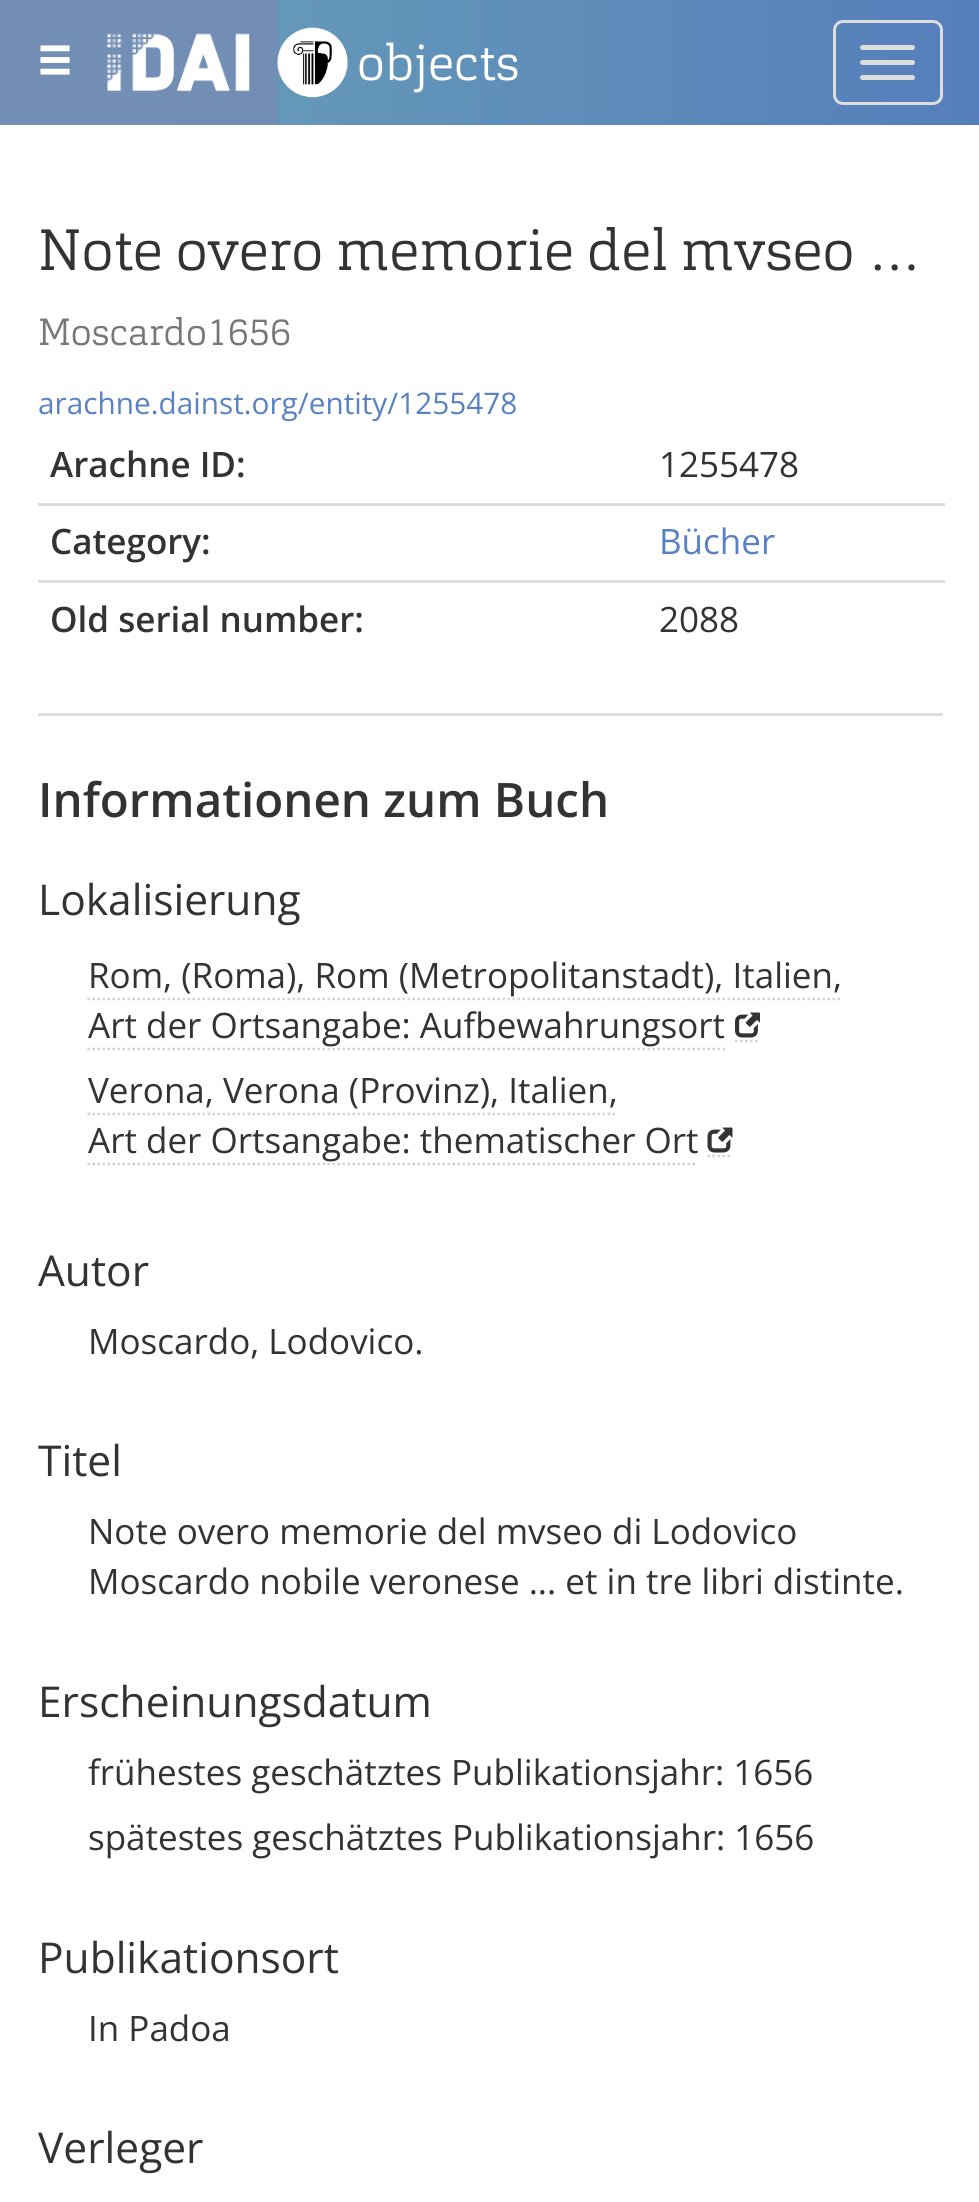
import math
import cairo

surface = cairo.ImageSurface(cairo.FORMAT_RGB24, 979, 2202)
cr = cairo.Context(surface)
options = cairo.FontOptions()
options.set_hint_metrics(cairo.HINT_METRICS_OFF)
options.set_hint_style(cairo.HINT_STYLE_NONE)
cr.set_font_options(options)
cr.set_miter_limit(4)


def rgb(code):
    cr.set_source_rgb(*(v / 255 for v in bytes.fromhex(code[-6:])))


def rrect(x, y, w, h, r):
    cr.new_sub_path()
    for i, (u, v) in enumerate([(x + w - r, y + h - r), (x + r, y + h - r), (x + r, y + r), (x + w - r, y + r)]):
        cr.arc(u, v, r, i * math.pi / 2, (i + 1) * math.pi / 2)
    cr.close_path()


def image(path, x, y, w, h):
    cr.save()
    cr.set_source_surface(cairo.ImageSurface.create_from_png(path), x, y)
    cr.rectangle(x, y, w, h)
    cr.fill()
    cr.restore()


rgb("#ffffff")
cr.paint()
gradient = cairo.LinearGradient(0, 63, 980, 62)
gradient.add_color_stop_rgba(0, 0.416, 0.635, 0.718, 1)
gradient.add_color_stop_rgba(1, 0.333, 0.494, 0.733, 1)
cr.set_source(gradient)
cr.rectangle(278, 0, 701, 125)
cr.fill()
gradient = cairo.LinearGradient(0, 63, 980, 62)
gradient.add_color_stop_rgba(0, 0.451, 0.561, 0.71, 1)
gradient.add_color_stop_rgba(1, 0.443, 0.549, 0.714, 1)
cr.set_source(gradient)
cr.rectangle(0, 0, 278, 125)
cr.fill()
image("img/1.png", 40, 45, 30, 30)
image("img/2.png", 107, 33, 143, 59)
image("img/3.png", 277, 27, 71, 71)
rrect(834.5, 21.5, 107, 82, 8.5)
rgb("#dddddd")
cr.set_line_width(3)
cr.stroke()
rrect(860, 45, 55, 5, 2.5)
cr.fill()
rrect(860, 60, 55, 5, 2.5)
cr.fill()
rrect(860, 75, 55, 5, 2.5)
cr.fill()
for x, y, w, h, color in [
    (38, 713, 905, 3, "#dddddd"),
    (38, 503, 907, 3, "#dddddd"),
    (38, 580, 907, 3, "#dddddd"),
]:
    rgb(color)
    cr.rectangle(x, y, w, h)
    cr.fill()
cr.new_path()
cr.move_to(87.5, 999)
cr.line_to(842.5, 999)
rgb("#d3d3d3")
cr.set_line_width(2.5)
cr.set_dash([2.5, 2.5])
cr.stroke()
cr.new_path()
cr.move_to(87.5, 1049)
cr.line_to(725, 1049)
cr.stroke()
cr.new_path()
cr.move_to(735, 1041)
cr.line_to(760, 1041)
cr.stroke()
image("img/4.png", 735, 1012, 25, 26)
cr.new_path()
cr.move_to(87.5, 1114)
cr.line_to(617.5, 1114)
cr.stroke()
cr.new_path()
cr.move_to(87.5, 1164)
cr.line_to(697.5, 1164)
cr.stroke()
cr.new_path()
cr.move_to(707.5, 1156)
cr.line_to(732.5, 1156)
cr.stroke()
image("img/5.png", 707, 1127, 26, 26)
cr.select_font_face("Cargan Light")
cr.set_font_size(50)
rgb("#ffffff")
cr.move_to(357, 80)
cr.show_text("objects")
cr.set_font_size(57.5)
rgb("#333333")
cr.move_to(38, 270)
cr.show_text("Note overo memorie del mvseo …")
cr.set_font_size(37.5)
rgb("#777777")
cr.move_to(38, 345)
cr.show_text("Moscardo1656")
cr.select_font_face("Open Sans")
cr.set_font_size(29.75)
rgb("#5882c2")
cr.move_to(38, 414)
cr.show_text("arachne.dainst.org/entity/1255478")
cr.select_font_face("Open Sans SemiBold")
cr.set_font_size(35)
rgb("#333333")
cr.move_to(50, 477)
cr.show_text("Arachne ID:")
cr.select_font_face("Open Sans")
cr.move_to(659, 477)
cr.show_text("1255478")
cr.select_font_face("Open Sans SemiBold")
cr.move_to(50, 554)
cr.show_text("Category:")
cr.select_font_face("Open Sans")
rgb("#5882c2")
cr.move_to(659, 554)
cr.show_text("Bücher")
cr.select_font_face("Open Sans SemiBold")
rgb("#333333")
cr.move_to(50, 632)
cr.show_text("Old serial number:")
cr.select_font_face("Open Sans")
cr.move_to(659, 632)
cr.show_text("2088")
cr.select_font_face("Open Sans SemiBold")
cr.set_font_size(47.5)
cr.move_to(38, 817)
cr.show_text("Informationen zum Buch")
cr.select_font_face("Open Sans")
cr.set_font_size(42.5)
cr.move_to(38, 915)
cr.show_text("Lokalisierung")
cr.set_font_size(35)
for x, y, s in [
    (88, 988, "Rom, (Roma), Rom (Metropolitanstadt), Italien,"),
    (88, 1038, "Art der Ortsangabe: Aufbewahrungsort"),
    (88, 1103, "Verona, Verona (Provinz), Italien,"),
    (88, 1153, "Art der Ortsangabe: thematischer Ort"),
]:
    cr.move_to(x, y)
    cr.show_text(s)
cr.set_font_size(42.5)
cr.move_to(38, 1286)
cr.show_text("Autor")
cr.set_font_size(35)
cr.move_to(88, 1354)
cr.show_text("Moscardo, Lodovico.")
cr.set_font_size(42.5)
cr.move_to(38, 1476)
cr.show_text("Titel")
cr.set_font_size(35)
cr.move_to(88, 1544)
cr.show_text("Note overo memorie del mvseo di Lodovico")
cr.move_to(88, 1594)
cr.show_text("Moscardo nobile veronese ... et in tre libri distinte.")
cr.set_font_size(42.5)
cr.move_to(38, 1717)
cr.show_text("Erscheinungsdatum")
cr.set_font_size(35)
cr.move_to(88, 1785)
cr.show_text("frühestes geschätztes Publikationsjahr: 1656")
cr.move_to(88, 1850)
cr.show_text("spätestes geschätztes Publikationsjahr: 1656")
cr.set_font_size(42.5)
cr.move_to(38, 1973)
cr.show_text("Publikationsort")
cr.set_font_size(35)
cr.move_to(88, 2041)
cr.show_text("In Padoa")
cr.set_font_size(42.5)
cr.move_to(38, 2163)
cr.show_text("Verleger")
surface.write_to_png("page.png")
